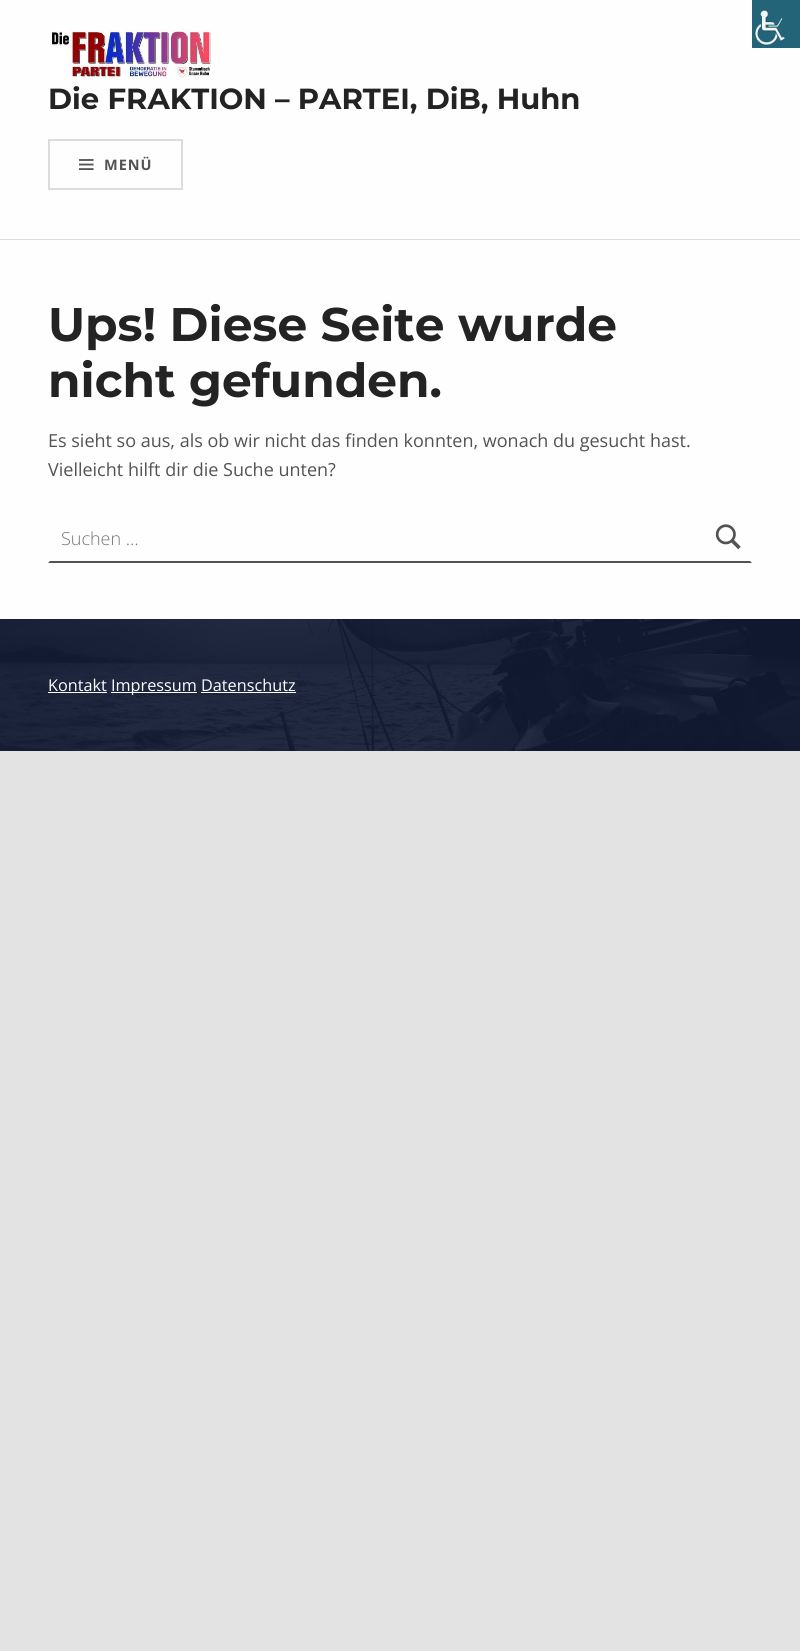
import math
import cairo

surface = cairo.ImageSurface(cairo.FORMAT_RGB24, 800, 1651)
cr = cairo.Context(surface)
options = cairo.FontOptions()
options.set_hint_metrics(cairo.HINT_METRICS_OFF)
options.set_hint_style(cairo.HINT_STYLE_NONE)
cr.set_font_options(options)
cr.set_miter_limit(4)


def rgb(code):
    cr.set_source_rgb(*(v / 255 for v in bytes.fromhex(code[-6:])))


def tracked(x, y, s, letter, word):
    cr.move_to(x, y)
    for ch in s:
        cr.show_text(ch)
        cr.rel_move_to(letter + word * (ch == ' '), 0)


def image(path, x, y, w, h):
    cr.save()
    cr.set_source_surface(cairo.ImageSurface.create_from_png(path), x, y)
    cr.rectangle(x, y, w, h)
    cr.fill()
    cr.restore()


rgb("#e3e3e4")
cr.paint()
rgb("#fefeff")
cr.rectangle(0, 0, 800, 619)
cr.fill()
image("img/1.png", 752, 0, 48, 48)
rgb("#dcdcdd")
cr.rectangle(0, 239, 800, 1)
cr.fill()
image("img/2.png", 51, 29, 161, 50)
cr.rectangle(49, 140, 133, 49)
cr.stroke()
image("img/3.png", 79, 159, 15, 11)
rgb("#535354")
cr.new_path()
cr.move_to(752, 563)
cr.line_to(48, 563)
cr.line_to(50, 561)
cr.line_to(750, 561)
cr.close_path()
cr.fill()
image("img/4.png", 715, 524, 26, 26)
rgb("#0f1732")
cr.rectangle(0, 619, 800, 132)
cr.fill()
image("img/5.png", 0, 619, 800, 132)
for x, y, w, h, color in [
    (48, 692, 59, 1, "#fefeff"),
    (111, 692, 86, 1, "#fefeff"),
    (201, 692, 95, 1, "#fefeff"),
]:
    rgb(color)
    cr.rectangle(x, y, w, h)
    cr.fill()
cr.select_font_face("Montserrat", cairo.FONT_SLANT_NORMAL, cairo.FONT_WEIGHT_BOLD)
cr.set_font_size(29.1)
rgb("#232324")
cr.move_to(48, 109)
cr.show_text("Die FRAKTION – PARTEI, DiB, Huhn")
cr.select_font_face("Open Sans", cairo.FONT_SLANT_NORMAL, cairo.FONT_WEIGHT_BOLD)
cr.set_font_size(14.5)
rgb("#535354")
tracked(104, 170, "MENÜ", 1, 0)
cr.select_font_face("Montserrat", cairo.FONT_SLANT_NORMAL, cairo.FONT_WEIGHT_BOLD)
cr.set_font_size(47.1)
rgb("#232324")
cr.move_to(48, 341)
cr.show_text("Ups! Diese Seite wurde")
cr.move_to(48, 397)
cr.show_text("nicht gefunden.")
cr.select_font_face("Open Sans")
cr.set_font_size(18)
rgb("#535354")
cr.move_to(48, 447)
cr.show_text("Es sieht so aus, als ob wir nicht das finden konnten, wonach du gesucht hast.")
cr.move_to(48, 476)
cr.show_text("Vielleicht hilft dir die Suche unten?")
cr.select_font_face("Open Sans Light")
rgb("#757576")
cr.move_to(61, 545)
cr.show_text("Suchen …")
cr.select_font_face("Open Sans")
cr.set_font_size(16.25)
rgb("#fefeff")
cr.move_to(48, 691)
cr.show_text("Kontakt")
cr.move_to(111, 691)
cr.show_text("Impressum Datenschutz")
surface.write_to_png("page.png")
